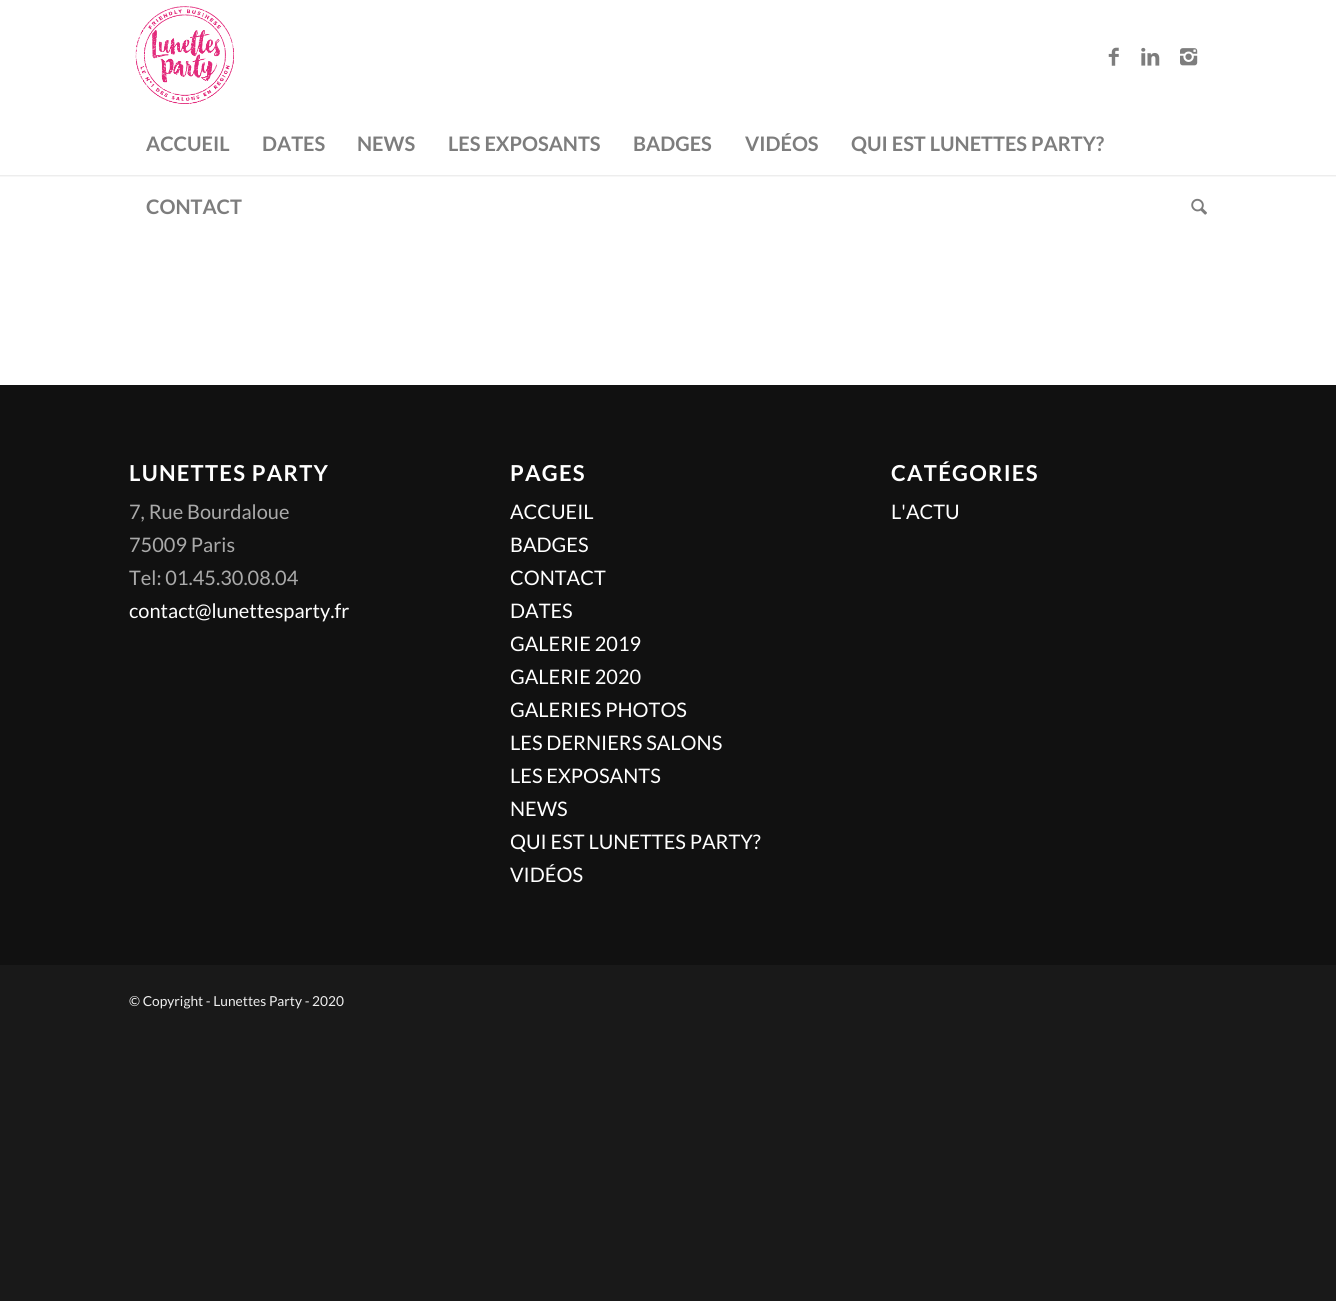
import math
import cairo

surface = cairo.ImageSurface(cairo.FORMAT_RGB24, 1336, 1301)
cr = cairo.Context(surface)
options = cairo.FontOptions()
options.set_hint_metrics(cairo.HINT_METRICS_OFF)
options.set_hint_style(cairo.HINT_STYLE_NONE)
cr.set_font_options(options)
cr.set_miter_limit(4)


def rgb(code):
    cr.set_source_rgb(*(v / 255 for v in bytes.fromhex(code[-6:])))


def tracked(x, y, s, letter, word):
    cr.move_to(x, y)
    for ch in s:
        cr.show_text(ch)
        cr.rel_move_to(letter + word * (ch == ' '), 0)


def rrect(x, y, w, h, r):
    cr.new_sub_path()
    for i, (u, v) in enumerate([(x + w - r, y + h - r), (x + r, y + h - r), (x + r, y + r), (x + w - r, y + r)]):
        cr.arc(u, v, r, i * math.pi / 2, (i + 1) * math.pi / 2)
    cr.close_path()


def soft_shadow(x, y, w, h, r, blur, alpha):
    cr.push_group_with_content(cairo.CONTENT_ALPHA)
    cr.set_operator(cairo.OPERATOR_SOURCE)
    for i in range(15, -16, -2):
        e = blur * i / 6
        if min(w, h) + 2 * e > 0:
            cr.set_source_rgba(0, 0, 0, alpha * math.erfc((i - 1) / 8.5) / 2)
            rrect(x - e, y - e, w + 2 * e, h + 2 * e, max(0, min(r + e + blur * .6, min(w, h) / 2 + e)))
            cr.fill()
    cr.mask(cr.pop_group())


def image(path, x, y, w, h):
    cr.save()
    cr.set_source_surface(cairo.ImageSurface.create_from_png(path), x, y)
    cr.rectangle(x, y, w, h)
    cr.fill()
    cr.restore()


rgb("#191919")
cr.paint()
rgb("#ffffff")
cr.rectangle(0, 0, 1336, 385)
cr.fill()
cr.save()
cr.rectangle(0, 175, 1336, 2)
cr.clip()
rgb("#000000")
soft_shadow(-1, -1, 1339, 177, 0, 1, 0.1)
cr.restore()
image("img/1.png", 135, 6, 99, 98)
image("img/2.png", 1108, 47, 11, 19)
image("img/3.png", 1141, 47, 19, 19)
image("img/4.png", 1180, 48, 18, 18)
image("img/5.png", 1191, 198, 16, 17)
rgb("#111111")
cr.rectangle(0, 385, 1336, 580)
cr.fill()
cr.select_font_face("Lato", cairo.FONT_SLANT_NORMAL, cairo.FONT_WEIGHT_BOLD)
cr.set_font_size(20)
rgb("#7d7d7d")
for x, y, s in [
    (146, 151, "ACCUEIL"),
    (262, 151, "DATES"),
    (357, 151, "NEWS"),
    (448, 151, "LES EXPOSANTS"),
    (633, 151, "BADGES"),
    (745, 151, "VIDÉOS"),
    (851, 151, "QUI EST LUNETTES PARTY?"),
    (146, 214, "CONTACT"),
]:
    cr.move_to(x, y)
    cr.show_text(s)
cr.set_font_size(22)
rgb("#ffffff")
tracked(129, 481, "LUNETTES PARTY", 1.25, 0)
cr.select_font_face("Lato")
cr.set_font_size(20)
rgb("#aaaaaa")
for x, y, s in [
    (129, 519, "7, Rue Bourdaloue"),
    (129, 552, "75009 Paris"),
    (129, 585, "Tel: 01.45.30.08.04"),
]:
    cr.move_to(x, y)
    cr.show_text(s)
rgb("#ffffff")
cr.move_to(129, 618)
cr.show_text("contact@lunettesparty.fr")
cr.select_font_face("Lato", cairo.FONT_SLANT_NORMAL, cairo.FONT_WEIGHT_BOLD)
cr.set_font_size(22)
tracked(510, 481, "PAGES", 1.25, 0)
cr.select_font_face("Lato")
cr.set_font_size(20)
for x, y, s in [
    (510, 519, "ACCUEIL"),
    (510, 552, "BADGES"),
    (510, 585, "CONTACT"),
    (510, 618, "DATES"),
    (510, 651, "GALERIE 2019"),
    (510, 684, "GALERIE 2020"),
    (510, 717, "GALERIES PHOTOS"),
    (510, 750, "LES DERNIERS SALONS"),
    (510, 783, "LES EXPOSANTS"),
    (510, 816, "NEWS"),
    (510, 849, "QUI EST LUNETTES PARTY?"),
    (510, 882, "VIDÉOS"),
]:
    cr.move_to(x, y)
    cr.show_text(s)
cr.select_font_face("Lato", cairo.FONT_SLANT_NORMAL, cairo.FONT_WEIGHT_BOLD)
cr.set_font_size(22)
tracked(891, 481, "CATÉGORIES", 1.25, 0)
cr.select_font_face("Lato")
cr.set_font_size(20)
cr.move_to(891, 519)
cr.show_text("L'ACTU")
cr.set_font_size(13.75)
rgb("#eeeeee")
cr.move_to(129, 1006)
cr.show_text("© Copyright - Lunettes Party - 2020")
surface.write_to_png("page.png")
